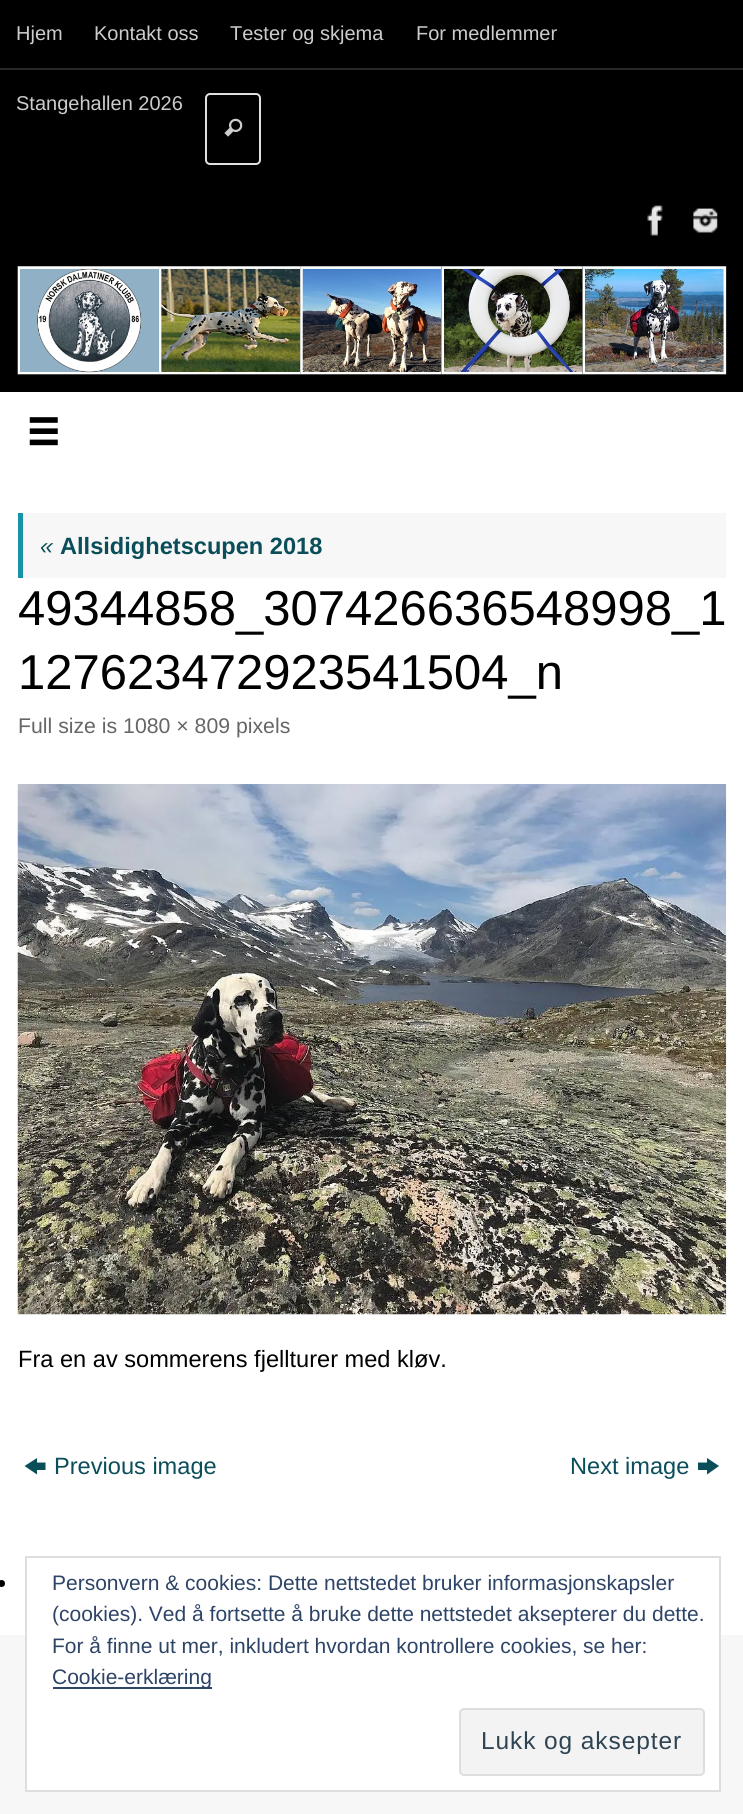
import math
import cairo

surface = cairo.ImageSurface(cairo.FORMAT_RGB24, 743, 1814)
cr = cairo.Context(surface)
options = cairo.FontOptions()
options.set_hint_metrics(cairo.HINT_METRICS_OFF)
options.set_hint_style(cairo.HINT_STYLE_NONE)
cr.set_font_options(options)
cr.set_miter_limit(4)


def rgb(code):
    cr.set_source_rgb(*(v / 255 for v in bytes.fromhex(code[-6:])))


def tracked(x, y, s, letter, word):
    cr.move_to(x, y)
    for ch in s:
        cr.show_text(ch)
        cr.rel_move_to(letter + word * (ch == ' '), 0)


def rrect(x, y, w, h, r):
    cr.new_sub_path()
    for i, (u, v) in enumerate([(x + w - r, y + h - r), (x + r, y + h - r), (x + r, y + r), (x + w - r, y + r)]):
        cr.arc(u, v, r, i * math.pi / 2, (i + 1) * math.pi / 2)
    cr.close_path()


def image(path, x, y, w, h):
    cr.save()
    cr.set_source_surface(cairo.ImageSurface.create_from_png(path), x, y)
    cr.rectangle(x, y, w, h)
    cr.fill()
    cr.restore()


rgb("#000000")
cr.paint()
rgb("#282828")
cr.rectangle(0, 68, 743, 2)
cr.fill()
rrect(206, 94, 54, 70, 4)
rgb("#e0e0e0")
cr.stroke()
image("img/1.png", 224, 118, 19, 19)
image("img/2.png", 647, 205, 16, 31)
image("img/3.png", 693, 208, 25, 25)
image("img/4.png", 17, 266, 710, 109)
rgb("#ffffff")
cr.rectangle(0, 392, 743, 1243)
cr.fill()
image("img/5.png", 29, 417, 29, 29)
rgb("#f7f7f7")
cr.rectangle(23, 513, 703, 65)
cr.fill()
rgb("#1693a5")
cr.rectangle(18, 513, 5, 65)
cr.fill()
image("img/6.png", 17, 784, 710, 531)
rgb("#094e58")
cr.new_path()
cr.move_to(24.5, 1466)
cr.line_to(37, 1458)
cr.line_to(37, 1462.5)
cr.line_to(45.5, 1462.5)
cr.line_to(45.5, 1470)
cr.line_to(37, 1470)
cr.line_to(37, 1474.5)
cr.close_path()
cr.fill()
cr.new_path()
cr.move_to(698, 1470)
cr.line_to(698, 1462.5)
cr.line_to(707, 1462.5)
cr.line_to(707, 1458)
cr.line_to(719, 1466)
cr.line_to(707, 1474.5)
cr.line_to(707, 1470)
cr.close_path()
cr.fill()
rgb("#f7f7f7")
cr.rectangle(0, 1635, 743, 179)
cr.fill()
rgb("#000000")
cr.arc(1.5, 1583.5, 3.5, 0, 2 * math.pi)
cr.fill()
rgb("#ffffff")
cr.rectangle(27, 1635, 692, 155)
cr.fill()
cr.rectangle(26, 1557, 694, 234)
rgb("#dedede")
cr.stroke()
rgb("#2e4467")
cr.rectangle(53, 1687, 159, 2)
cr.fill()
rgb("#f3f3f3")
rrect(460, 1709, 244, 66, 4)
cr.fill_preserve()
rgb("#dedede")
cr.stroke()
cr.select_font_face("Liberation Sans")
cr.set_font_size(20)
rgb("#cccccc")
for x, y, s in [
    (16, 40, "Hjem"),
    (94, 40, "Kontakt oss"),
    (230, 40, "Tester og skjema"),
    (416, 40, "For medlemmer"),
    (16, 110, "Stangehallen 2026"),
]:
    cr.move_to(x, y)
    cr.show_text(s)
cr.select_font_face("Liberation Sans", cairo.FONT_SLANT_ITALIC)
cr.set_font_size(23.6)
rgb("#094e58")
cr.move_to(40, 554)
cr.show_text("«")
cr.select_font_face("Liberation Sans", cairo.FONT_SLANT_NORMAL, cairo.FONT_WEIGHT_BOLD)
cr.move_to(60, 554)
cr.show_text("Allsidighetscupen 2018")
cr.select_font_face("Liberation Sans")
cr.set_font_size(49)
rgb("#000000")
cr.move_to(18, 625)
cr.show_text("49344858_307426636548998_1")
cr.move_to(18, 689)
cr.show_text("127623472923541504_n")
cr.set_font_size(21.25)
rgb("#666666")
cr.move_to(18, 733)
cr.show_text("Full size is 1080 × 809 pixels")
cr.set_font_size(23.6)
rgb("#000000")
cr.move_to(18, 1367)
cr.show_text("Fra en av sommerens fjellturer med kløv.")
rgb("#094e58")
cr.move_to(54, 1474)
cr.show_text("Previous image")
cr.move_to(570, 1474)
cr.show_text("Next image")
cr.set_font_size(21)
rgb("#2e4467")
for x, y, s in [
    (52, 1590, "Personvern & cookies: Dette nettstedet bruker informasjonskapsler"),
    (52, 1621, "(cookies). Ved å fortsette å bruke dette nettstedet aksepterer du dette."),
    (52, 1653, "For å finne ut mer, inkludert hvordan kontrollere cookies, se her:"),
    (52, 1684, "Cookie-erklæring"),
]:
    cr.move_to(x, y)
    cr.show_text(s)
cr.set_font_size(24.5)
rgb("#2e4453")
tracked(481, 1749, "Lukk og aksepter", 0.9, 0)
surface.write_to_png("page.png")
